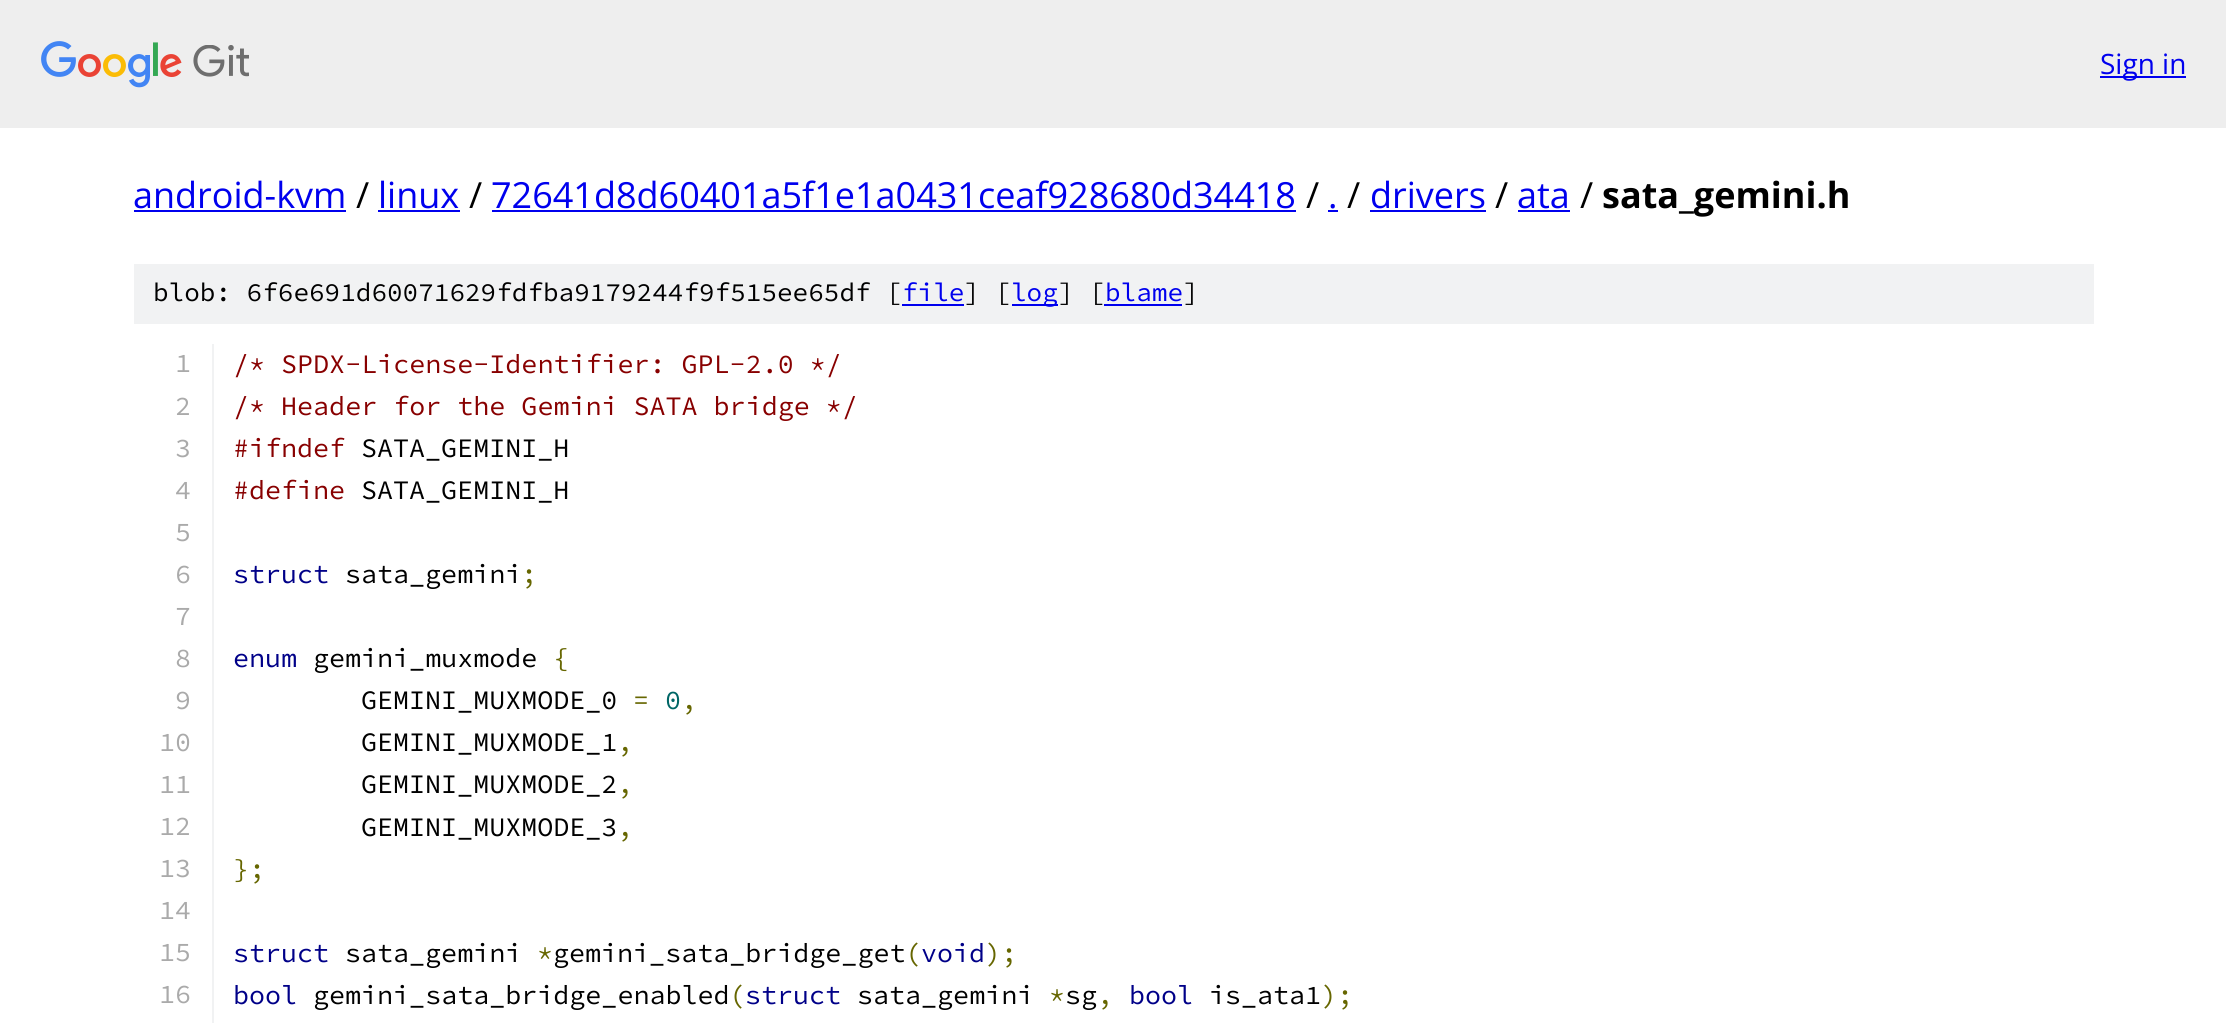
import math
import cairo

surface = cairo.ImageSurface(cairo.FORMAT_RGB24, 2226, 1023)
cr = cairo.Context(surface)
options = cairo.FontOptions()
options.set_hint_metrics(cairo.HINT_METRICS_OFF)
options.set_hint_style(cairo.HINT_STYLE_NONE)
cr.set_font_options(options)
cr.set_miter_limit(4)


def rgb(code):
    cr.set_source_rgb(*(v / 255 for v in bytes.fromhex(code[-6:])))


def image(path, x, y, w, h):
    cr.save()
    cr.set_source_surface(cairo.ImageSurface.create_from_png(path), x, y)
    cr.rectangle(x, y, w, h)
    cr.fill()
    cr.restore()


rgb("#ffffff")
cr.paint()
rgb("#eeeeee")
cr.rectangle(0, 0, 2226, 128)
cr.fill()
image("img/1.png", 41, 41, 208, 47)
for x, y, w, h, color in [
    (2100, 76, 86, 2, "#0000ee"),
    (134, 210, 212, 2, "#0000ee"),
    (378, 210, 82, 2, "#0000ee"),
    (492, 210, 804, 2, "#0000ee"),
    (1328, 210, 10, 2, "#0000ee"),
    (1370, 210, 116, 2, "#0000ee"),
    (1518, 210, 52, 2, "#0000ee"),
    (134, 264, 1960, 60, "#f1f2f3"),
    (902, 304, 62, 2, "#0000ee"),
    (1012, 304, 46, 2, "#0000ee"),
    (1104, 304, 78, 2, "#0000ee"),
    (212, 344, 2, 679, "#f1f2f3"),
]:
    rgb(color)
    cr.rectangle(x, y, w, h)
    cr.fill()
cr.select_font_face("Open Sans")
cr.set_font_size(28)
rgb("#0000ee")
cr.move_to(2100, 74)
cr.show_text("Sign in")
cr.set_font_size(36)
cr.move_to(133, 208)
cr.show_text("android-kvm")
rgb("#000000")
cr.move_to(356, 208)
cr.show_text("/")
rgb("#0000ee")
cr.move_to(378, 208)
cr.show_text("linux")
rgb("#000000")
cr.move_to(469, 208)
cr.show_text("/")
rgb("#0000ee")
cr.move_to(491, 208)
cr.show_text("72641d8d60401a5f1e1a0431ceaf928680d34418")
rgb("#000000")
cr.move_to(1306, 208)
cr.show_text("/")
rgb("#0000ee")
cr.move_to(1328, 208)
cr.show_text(".")
rgb("#000000")
cr.move_to(1347, 208)
cr.show_text("/")
rgb("#0000ee")
cr.move_to(1370, 208)
cr.show_text("drivers")
rgb("#000000")
cr.move_to(1495, 208)
cr.show_text("/")
rgb("#0000ee")
cr.move_to(1517, 208)
cr.show_text("ata")
rgb("#000000")
cr.move_to(1580, 208)
cr.show_text("/")
cr.select_font_face("Open Sans", cairo.FONT_SLANT_NORMAL, cairo.FONT_WEIGHT_BOLD)
cr.move_to(1602, 208)
cr.show_text("sata_gemini.h")
cr.select_font_face("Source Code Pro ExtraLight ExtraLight")
cr.set_font_size(26)
cr.move_to(153, 301)
cr.show_text("blob: 6f6e691d60071629fdfba9179244f9f515ee65df [")
rgb("#0000ee")
cr.move_to(902, 301)
cr.show_text("file")
rgb("#000000")
cr.move_to(964, 301)
cr.show_text("] [")
rgb("#0000ee")
cr.move_to(1011, 301)
cr.show_text("log")
rgb("#000000")
cr.move_to(1058, 301)
cr.show_text("] [")
rgb("#0000ee")
cr.move_to(1105, 301)
cr.show_text("blame")
rgb("#000000")
cr.move_to(1183, 301)
cr.show_text("]")
cr.set_font_size(26.7)
rgb("#aaaaaa")
cr.move_to(175, 372)
cr.show_text("1")
rgb("#880000")
cr.move_to(233, 373)
cr.show_text("/* SPDX-License-Identifier: GPL-2.0 */")
rgb("#aaaaaa")
cr.move_to(175, 415)
cr.show_text("2")
rgb("#880000")
cr.move_to(233, 415)
cr.show_text("/* Header for the Gemini SATA bridge */")
rgb("#aaaaaa")
cr.move_to(175, 457)
cr.show_text("3")
rgb("#880000")
cr.move_to(233, 457)
cr.show_text("#ifndef")
rgb("#000000")
cr.move_to(361, 457)
cr.show_text("SATA_GEMINI_H")
rgb("#aaaaaa")
cr.move_to(175, 499)
cr.show_text("4")
rgb("#880000")
cr.move_to(233, 499)
cr.show_text("#define")
rgb("#000000")
cr.move_to(361, 499)
cr.show_text("SATA_GEMINI_H")
rgb("#aaaaaa")
cr.move_to(175, 541)
cr.show_text("5")
cr.move_to(175, 583)
cr.show_text("6")
rgb("#000088")
cr.move_to(233, 583)
cr.show_text("struct")
rgb("#000000")
cr.move_to(345, 583)
cr.show_text("sata_gemini")
rgb("#666600")
cr.move_to(521, 583)
cr.show_text(";")
rgb("#aaaaaa")
cr.move_to(175, 625)
cr.show_text("7")
cr.move_to(175, 667)
cr.show_text("8")
rgb("#000088")
cr.move_to(233, 667)
cr.show_text("enum")
rgb("#000000")
cr.move_to(313, 667)
cr.show_text("gemini_muxmode")
rgb("#666600")
cr.move_to(553, 667)
cr.show_text("{")
rgb("#aaaaaa")
cr.move_to(175, 709)
cr.show_text("9")
rgb("#000000")
cr.move_to(361, 709)
cr.show_text("GEMINI_MUXMODE_0")
rgb("#666600")
cr.move_to(633, 709)
cr.show_text("=")
rgb("#006666")
cr.move_to(665, 709)
cr.show_text("0")
rgb("#666600")
cr.move_to(681, 709)
cr.show_text(",")
rgb("#aaaaaa")
cr.move_to(159, 751)
cr.show_text("10")
rgb("#000000")
cr.move_to(361, 751)
cr.show_text("GEMINI_MUXMODE_1")
rgb("#666600")
cr.move_to(617, 751)
cr.show_text(",")
rgb("#aaaaaa")
cr.move_to(159, 793)
cr.show_text("11")
rgb("#000000")
cr.move_to(361, 793)
cr.show_text("GEMINI_MUXMODE_2")
rgb("#666600")
cr.move_to(617, 793)
cr.show_text(",")
rgb("#aaaaaa")
cr.move_to(159, 835)
cr.show_text("12")
rgb("#000000")
cr.move_to(361, 836)
cr.show_text("GEMINI_MUXMODE_3")
rgb("#666600")
cr.move_to(617, 836)
cr.show_text(",")
rgb("#aaaaaa")
cr.move_to(159, 877)
cr.show_text("13")
rgb("#666600")
cr.move_to(233, 878)
cr.show_text("};")
rgb("#aaaaaa")
cr.move_to(159, 919)
cr.show_text("14")
cr.move_to(159, 961)
cr.show_text("15")
rgb("#000088")
cr.move_to(233, 962)
cr.show_text("struct")
rgb("#000000")
cr.move_to(345, 962)
cr.show_text("sata_gemini")
rgb("#666600")
cr.move_to(537, 962)
cr.show_text("*")
rgb("#000000")
cr.move_to(553, 962)
cr.show_text("gemini_sata_bridge_get")
rgb("#666600")
cr.move_to(905, 962)
cr.show_text("(")
rgb("#000088")
cr.move_to(921, 962)
cr.show_text("void")
rgb("#666600")
cr.move_to(985, 962)
cr.show_text(");")
rgb("#aaaaaa")
cr.move_to(159, 1003)
cr.show_text("16")
rgb("#000088")
cr.move_to(233, 1004)
cr.show_text("bool")
rgb("#000000")
cr.move_to(313, 1004)
cr.show_text("gemini_sata_bridge_enabled")
rgb("#666600")
cr.move_to(729, 1004)
cr.show_text("(")
rgb("#000088")
cr.move_to(745, 1004)
cr.show_text("struct")
rgb("#000000")
cr.move_to(857, 1004)
cr.show_text("sata_gemini")
rgb("#666600")
cr.move_to(1049, 1004)
cr.show_text("*")
rgb("#000000")
cr.move_to(1065, 1004)
cr.show_text("sg")
rgb("#666600")
cr.move_to(1097, 1004)
cr.show_text(",")
rgb("#000088")
cr.move_to(1129, 1004)
cr.show_text("bool")
rgb("#000000")
cr.move_to(1209, 1004)
cr.show_text("is_ata1")
rgb("#666600")
cr.move_to(1321, 1004)
cr.show_text(");")
surface.write_to_png("page.png")
